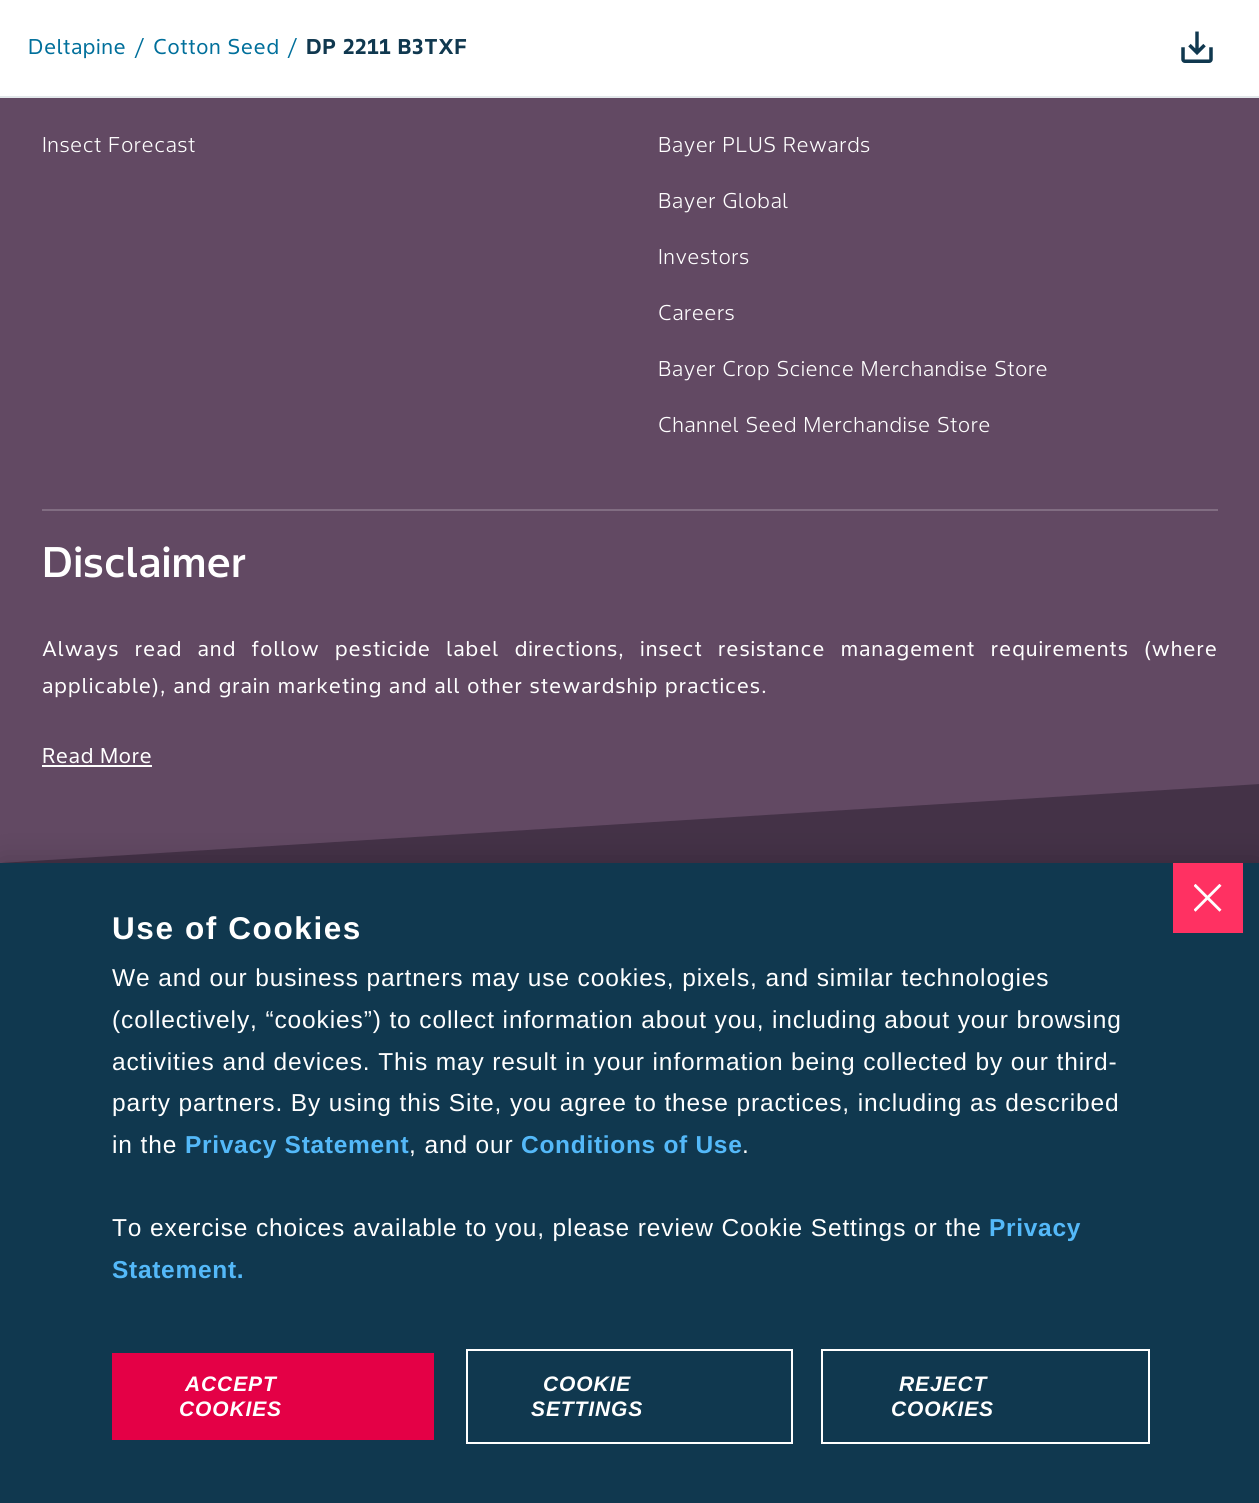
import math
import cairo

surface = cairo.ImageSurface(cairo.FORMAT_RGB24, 1259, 1503)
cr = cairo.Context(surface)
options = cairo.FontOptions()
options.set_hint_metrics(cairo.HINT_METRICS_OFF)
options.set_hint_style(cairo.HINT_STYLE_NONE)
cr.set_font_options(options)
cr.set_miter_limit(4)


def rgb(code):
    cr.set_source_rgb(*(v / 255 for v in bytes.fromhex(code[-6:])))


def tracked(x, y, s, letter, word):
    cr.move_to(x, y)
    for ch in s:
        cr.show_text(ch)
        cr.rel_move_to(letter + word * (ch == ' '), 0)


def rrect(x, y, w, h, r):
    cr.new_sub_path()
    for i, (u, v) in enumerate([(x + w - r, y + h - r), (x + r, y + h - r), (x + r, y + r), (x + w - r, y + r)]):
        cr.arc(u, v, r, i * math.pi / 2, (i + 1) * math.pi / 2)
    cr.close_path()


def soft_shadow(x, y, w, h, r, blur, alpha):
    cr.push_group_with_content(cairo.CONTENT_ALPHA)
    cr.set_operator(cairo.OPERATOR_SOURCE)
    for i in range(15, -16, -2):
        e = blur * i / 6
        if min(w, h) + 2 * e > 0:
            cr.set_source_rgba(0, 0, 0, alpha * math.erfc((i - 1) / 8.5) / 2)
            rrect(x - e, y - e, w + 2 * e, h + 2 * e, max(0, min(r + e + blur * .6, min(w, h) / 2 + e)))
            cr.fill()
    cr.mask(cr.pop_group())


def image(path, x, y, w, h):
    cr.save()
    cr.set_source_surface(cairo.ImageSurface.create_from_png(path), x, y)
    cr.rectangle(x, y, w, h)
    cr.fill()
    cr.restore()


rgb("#624963")
cr.paint()
rgb("#ffffff")
cr.rectangle(0, 0, 1259, 96)
cr.fill()
rgb("#e2e7ea")
cr.rectangle(0, 96, 1259, 2)
cr.fill()
image("img/1.png", 1181, 31, 32, 32)
rgb("#816d82")
cr.rectangle(42, 509, 1176, 2)
cr.fill()
rgb("#ffffff")
cr.rectangle(42, 765, 110, 2)
cr.fill()
rgb("#443247")
cr.new_path()
cr.move_to(0, 863)
cr.line_to(0, 868)
cr.line_to(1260, 868)
cr.line_to(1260, 784)
cr.close_path()
cr.fill()
rgb("#000000")
soft_shadow(0, 863, 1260, 640, 0, 16, 0.2)
rgb("#10384f")
cr.rectangle(0, 863, 1259, 640)
cr.fill()
rgb("#ff3162")
cr.rectangle(1173, 863, 70, 70)
cr.fill()
image("img/2.png", 1194, 884, 28, 28)
rgb("#e40046")
cr.rectangle(112, 1353, 322, 87)
cr.fill()
cr.rectangle(467, 1350, 325, 93)
rgb("#ffffff")
cr.stroke()
cr.rectangle(822, 1350, 327, 93)
cr.stroke()
cr.select_font_face("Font")
cr.set_font_size(21)
rgb("#006f9b")
tracked(28, 54, "Deltapine", 0.45, 0)
cr.select_font_face("Font Light")
cr.set_font_size(28)
cr.move_to(133, 58)
cr.show_text("/")
cr.select_font_face("Font")
cr.set_font_size(21)
tracked(153, 54, "Cotton Seed", 0.45, 0)
cr.select_font_face("Font Light")
cr.set_font_size(28)
cr.move_to(286, 58)
cr.show_text("/")
cr.select_font_face("Font", cairo.FONT_SLANT_NORMAL, cairo.FONT_WEIGHT_BOLD)
cr.set_font_size(21)
rgb("#10384f")
tracked(306, 54, "DP 2211 B3TXF", 0.45, 0)
cr.select_font_face("Font Light")
rgb("#ffffff")
for x, y, s in [
    (42, 152, "Insect Forecast"),
    (658, 152, "Bayer PLUS Rewards"),
    (658, 208, "Bayer Global"),
    (658, 264, "Investors"),
    (658, 320, "Careers"),
    (658, 376, "Bayer Crop Science Merchandise Store"),
    (658, 432, "Channel Seed Merchandise Store"),
]:
    tracked(x, y, s, 0.45, 0)
cr.select_font_face("Font Medium")
cr.set_font_size(42)
cr.move_to(42, 577)
cr.show_text("Disclaimer")
cr.select_font_face("Font")
cr.set_font_size(21)
tracked(42, 656, "Always read and follow pesticide label directions, insect resistance management requirements (where", 0.88, 8.6)
tracked(42, 693, "applicable), and grain marketing and all other stewardship practices.", 0.88, 0)
tracked(42, 763, "Read More", 0.45, 0)
cr.select_font_face("Liberation Sans", cairo.FONT_SLANT_NORMAL, cairo.FONT_WEIGHT_BOLD)
cr.set_font_size(31.5)
tracked(112, 939, "Use of Cookies", 1.6, 0)
cr.select_font_face("Liberation Sans")
cr.set_font_size(24.5)
for x, y, s in [
    (112, 986, "We and our business partners may use cookies, pixels, and similar technologies"),
    (112, 1028, "(collectively, “cookies”) to collect information about you, including about your browsing"),
    (112, 1070, "activities and devices. This may result in your information being collected by our third-"),
    (112, 1111, "party partners. By using this Site, you agree to these practices, including as described"),
    (112, 1153, "in the"),
]:
    tracked(x, y, s, 0.88, 0)
cr.select_font_face("Liberation Sans", cairo.FONT_SLANT_NORMAL, cairo.FONT_WEIGHT_BOLD)
rgb("#54b9f9")
tracked(185, 1153, "Privacy Statement", 0.7, 0)
cr.select_font_face("Liberation Sans")
rgb("#ffffff")
tracked(409, 1153, ", and our", 0.88, 0)
cr.select_font_face("Liberation Sans", cairo.FONT_SLANT_NORMAL, cairo.FONT_WEIGHT_BOLD)
rgb("#54b9f9")
tracked(521, 1153, "Conditions of Use", 0.7, 0)
cr.select_font_face("Liberation Sans")
rgb("#ffffff")
tracked(742, 1153, ".", 0.88, 0)
tracked(112, 1236, "To exercise choices available to you, please review Cookie Settings or the", 0.88, 0)
cr.select_font_face("Liberation Sans", cairo.FONT_SLANT_NORMAL, cairo.FONT_WEIGHT_BOLD)
rgb("#54b9f9")
tracked(989, 1236, "Privacy", 0.7, 0)
tracked(112, 1278, "Statement.", 0.7, 0)
cr.select_font_face("Liberation Sans", cairo.FONT_SLANT_ITALIC, cairo.FONT_WEIGHT_BOLD)
cr.set_font_size(21)
rgb("#ffffff")
for x, y, s in [
    (185, 1391, "ACCEPT"),
    (179, 1416, "COOKIES"),
    (543, 1391, "COOKIE"),
    (531, 1416, "SETTINGS"),
    (899, 1391, "REJECT"),
    (891, 1416, "COOKIES"),
]:
    tracked(x, y, s, 0.88, 0)
surface.write_to_png("page.png")
